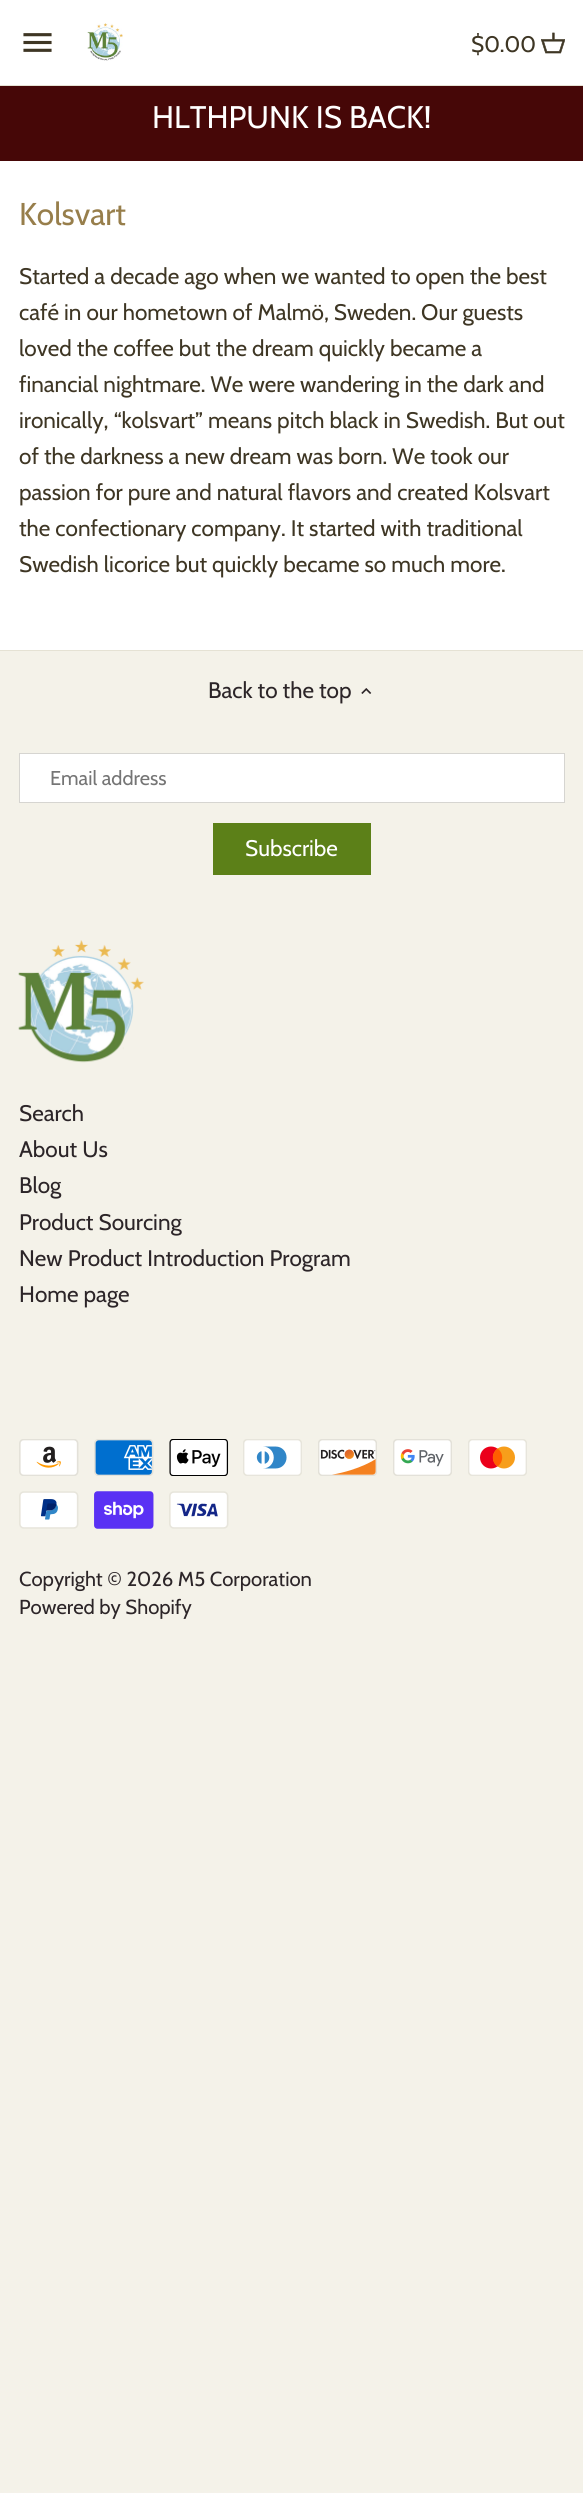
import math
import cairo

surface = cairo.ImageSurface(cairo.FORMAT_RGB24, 583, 2493)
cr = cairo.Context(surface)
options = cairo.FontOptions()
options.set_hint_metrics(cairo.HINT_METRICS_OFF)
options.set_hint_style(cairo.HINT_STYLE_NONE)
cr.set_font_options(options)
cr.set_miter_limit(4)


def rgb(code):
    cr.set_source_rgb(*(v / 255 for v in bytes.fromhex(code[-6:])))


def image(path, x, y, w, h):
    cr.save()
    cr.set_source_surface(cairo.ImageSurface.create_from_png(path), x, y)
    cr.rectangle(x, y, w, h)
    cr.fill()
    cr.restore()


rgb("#f4f2e9")
cr.paint()
rgb("#ffffff")
cr.rectangle(0, 0, 583, 650)
cr.fill()
rgb("#e5e2d4")
cr.rectangle(0, 85, 583, 1)
cr.fill()
image("img/1.png", 23, 33, 29, 19)
image("img/2.png", 87, 23, 36, 38)
image("img/3.png", 541, 32, 24, 22)
rgb("#460707")
cr.rectangle(0, 86, 583, 75)
cr.fill()
rgb("#e5e2d4")
cr.rectangle(0, 650, 583, 1)
cr.fill()
image("img/4.png", 361, 688, 11, 6)
rgb("#ffffff")
cr.rectangle(19.5, 753.5, 545, 49)
cr.fill_preserve()
rgb("#d6d5d1")
cr.set_line_width(1)
cr.stroke()
rgb("#5c8018")
cr.rectangle(213, 823, 158, 52)
cr.fill()
image("img/5.png", 18, 940, 126, 123)
image("img/6.png", 19, 1439, 60, 37)
image("img/7.png", 94, 1439, 60, 37)
image("img/8.png", 169, 1439, 60, 37)
image("img/9.png", 243, 1439, 59, 37)
image("img/10.png", 318, 1439, 59, 37)
image("img/11.png", 393, 1439, 59, 37)
image("img/12.png", 468, 1439, 59, 37)
image("img/13.png", 19, 1491, 60, 38)
image("img/14.png", 94, 1491, 60, 38)
image("img/15.png", 169, 1491, 60, 38)
cr.select_font_face("Cabin")
cr.set_font_size(22.5)
rgb("#3e3624")
cr.move_to(471, 52)
cr.show_text("$0.00")
cr.set_font_size(31.25)
rgb("#ffffff")
cr.move_to(152, 128)
cr.show_text("HLTHPUNK IS BACK!")
cr.set_font_size(31.5)
rgb("#977e4b")
cr.move_to(19, 225)
cr.show_text("Kolsvart")
cr.set_font_size(22.5)
rgb("#3e3624")
for x, y, s in [
    (19, 284, "Started a decade ago when we wanted to open the best"),
    (19, 320, "café in our hometown of Malmö, Sweden. Our guests"),
    (19, 356, "loved the coffee but the dream quickly became a"),
    (19, 392, "financial nightmare. We were wandering in the dark and"),
    (19, 428, "ironically, “kolsvart” means pitch black in Swedish. But out"),
    (19, 464, "of the darkness a new dream was born. We took our"),
    (19, 500, "passion for pure and natural flavors and created Kolsvart"),
    (19, 536, "the confectionary company. It started with traditional"),
    (19, 572, "Swedish licorice but quickly became so much more."),
]:
    cr.move_to(x, y)
    cr.show_text(s)
rgb("#2c2528")
cr.move_to(208, 698)
cr.show_text("Back to the top")
cr.set_font_size(20)
rgb("#757575")
cr.move_to(50, 785)
cr.show_text("Email address")
cr.set_font_size(22.5)
rgb("#ffffff")
cr.move_to(245, 856)
cr.show_text("Subscribe")
rgb("#2c2528")
for x, y, s in [
    (19, 1121, "Search"),
    (19, 1157, "About Us"),
    (19, 1193, "Blog"),
    (19, 1230, "Product Sourcing"),
    (19, 1266, "New Product Introduction Program"),
    (19, 1302, "Home page"),
]:
    cr.move_to(x, y)
    cr.show_text(s)
cr.set_font_size(20.25)
cr.move_to(19, 1586)
cr.show_text("Copyright © 2026 M5 Corporation")
cr.move_to(19, 1614)
cr.show_text("Powered by Shopify")
surface.write_to_png("page.png")
